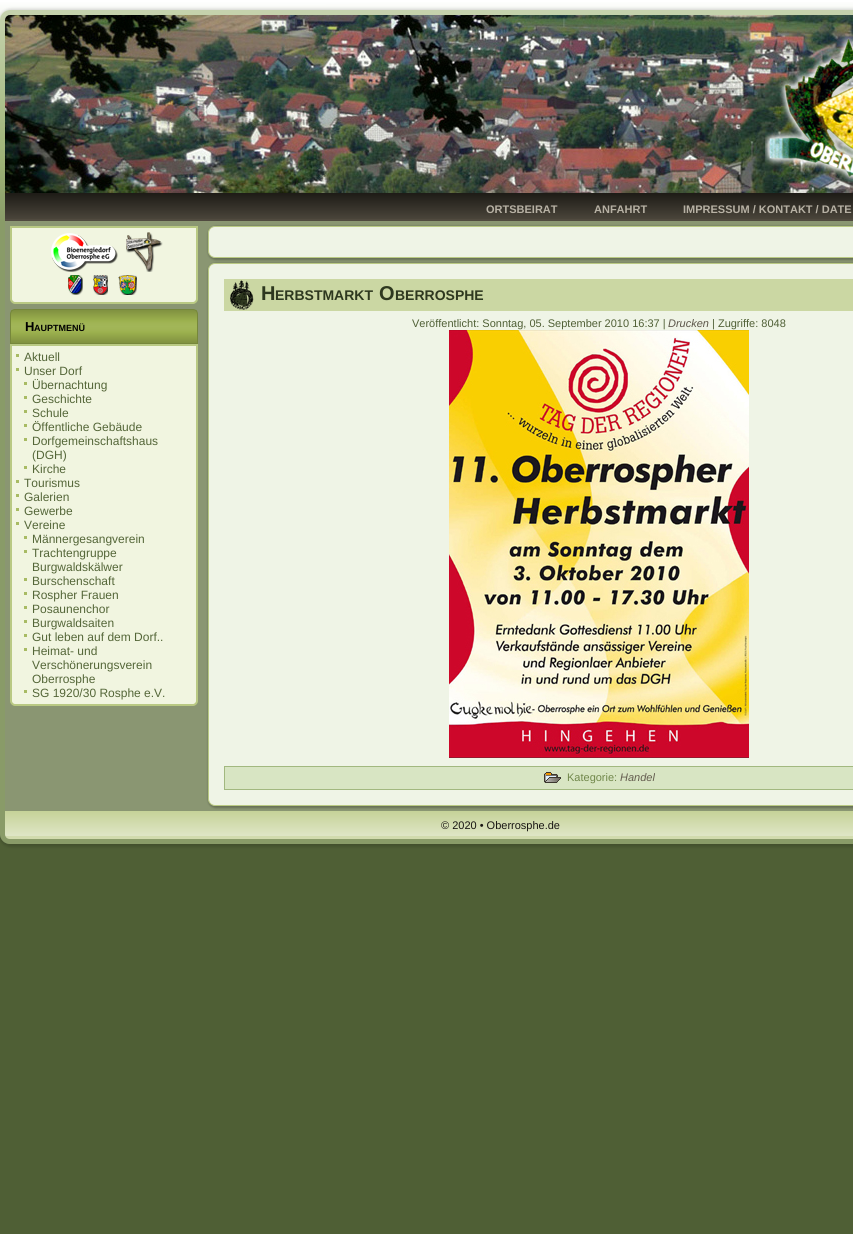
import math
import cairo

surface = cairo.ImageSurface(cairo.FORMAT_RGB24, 853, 1234)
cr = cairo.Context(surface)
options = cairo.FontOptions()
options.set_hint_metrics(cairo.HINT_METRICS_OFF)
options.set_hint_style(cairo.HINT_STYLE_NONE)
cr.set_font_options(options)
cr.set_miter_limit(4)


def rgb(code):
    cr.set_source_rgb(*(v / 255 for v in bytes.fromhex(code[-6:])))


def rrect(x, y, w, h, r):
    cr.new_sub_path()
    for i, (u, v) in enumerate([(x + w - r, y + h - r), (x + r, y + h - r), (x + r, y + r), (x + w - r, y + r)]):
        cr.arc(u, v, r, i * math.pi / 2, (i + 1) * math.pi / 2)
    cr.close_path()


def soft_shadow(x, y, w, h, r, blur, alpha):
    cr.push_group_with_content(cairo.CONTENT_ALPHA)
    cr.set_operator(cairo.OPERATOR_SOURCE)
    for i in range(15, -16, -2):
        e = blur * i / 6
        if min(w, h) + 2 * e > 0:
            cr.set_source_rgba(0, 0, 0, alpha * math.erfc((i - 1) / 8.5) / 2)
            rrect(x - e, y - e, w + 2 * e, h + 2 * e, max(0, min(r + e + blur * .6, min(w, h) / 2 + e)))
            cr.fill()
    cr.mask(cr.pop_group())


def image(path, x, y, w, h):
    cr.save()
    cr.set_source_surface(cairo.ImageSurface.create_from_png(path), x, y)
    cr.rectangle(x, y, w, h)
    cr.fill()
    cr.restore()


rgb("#ffffff")
cr.paint()
gradient = cairo.LinearGradient(426, 0, 427, 1234)
gradient.add_color_stop_rgba(0, 1, 1, 1, 1)
gradient.add_color_stop_rgba(0.13, 0.533, 0.643, 0.357, 1)
gradient.add_color_stop_rgba(0.18, 0.31, 0.373, 0.208, 1)
cr.set_source(gradient)
cr.rectangle(0, 2, 853, 1232)
cr.fill()
cr.save()
cr.set_fill_rule(cairo.FILL_RULE_EVEN_ODD)
cr.new_path()
cr.move_to(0, 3)
cr.line_to(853, 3)
cr.line_to(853, 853)
cr.line_to(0, 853)
cr.close_path()
cr.move_to(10, 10)
cr.line_to(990, 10)
cr.curve_to(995.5, 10, 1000, 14.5, 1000, 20)
cr.line_to(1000, 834)
cr.curve_to(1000, 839.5, 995.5, 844, 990, 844)
cr.line_to(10, 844)
cr.curve_to(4.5, 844, 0, 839.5, 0, 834)
cr.line_to(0, 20)
cr.curve_to(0, 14.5, 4.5, 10, 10, 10)
cr.close_path()
cr.clip()
rgb("#000000")
soft_shadow(-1, 9, 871, 838, 12, 1.5, 0.16)
cr.restore()
cr.set_source_rgba(0.89, 0.914, 0.804, 0.4)
rrect(0, 10, 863, 834, 10)
cr.fill()
rrect(2.5, 12.5, 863, 829, 7.5)
cr.set_source_rgba(0.533, 0.643, 0.357, 0.4)
cr.set_line_width(5)
cr.stroke()
image("img/1.png", 5, 15, 848, 178)
gradient = cairo.LinearGradient(500, 193, 500, 221)
gradient.add_color_stop_rgba(0, 0.114, 0.106, 0.086, 1)
gradient.add_color_stop_rgba(1, 0.302, 0.282, 0.239, 1)
cr.set_source(gradient)
cr.rectangle(5, 193, 848, 26)
cr.fill()
rgb("#504a3f")
cr.rectangle(5, 219, 848, 2)
cr.fill()
rgb("#f1f5e0")
cr.new_path()
cr.move_to(11, 227)
cr.line_to(197, 227)
cr.line_to(197, 299)
cr.curve_to(197, 301, 195, 303, 193, 303)
cr.line_to(15, 303)
cr.curve_to(13, 303, 11, 301, 11, 299)
cr.close_path()
cr.fill_preserve()
rgb("#b9c983")
cr.set_line_width(2)
cr.stroke()
image("img/2.png", 51, 233, 67, 39)
image("img/3.png", 126, 232, 37, 40)
image("img/4.png", 68, 275, 15, 20)
image("img/5.png", 93, 275, 15, 20)
image("img/6.png", 118, 275, 19, 20)
gradient = cairo.LinearGradient(104, 310, 104, 343)
gradient.add_color_stop_rgba(0, 0.502, 0.569, 0.251, 1)
gradient.add_color_stop_rgba(0.33, 0.612, 0.694, 0.306, 1)
gradient.add_color_stop_rgba(0.4, 0.627, 0.706, 0.333, 1)
gradient.add_color_stop_rgba(0.5, 0.635, 0.714, 0.345, 1)
gradient.add_color_stop_rgba(0.6, 0.627, 0.706, 0.333, 1)
gradient.add_color_stop_rgba(0.67, 0.612, 0.694, 0.306, 1)
gradient.add_color_stop_rgba(1, 0.502, 0.569, 0.251, 1)
cr.set_source(gradient)
cr.rectangle(11, 310, 186, 33)
cr.fill()
cr.new_path()
cr.move_to(15, 309.5)
cr.line_to(193, 309.5)
cr.curve_to(195.5, 309.5, 197.5, 311.5, 197.5, 314)
cr.line_to(197.5, 343.5)
cr.line_to(10.5, 343.5)
cr.line_to(10.5, 314)
cr.curve_to(10.5, 311.5, 12.5, 309.5, 15, 309.5)
cr.close_path()
rgb("#76873b")
cr.set_line_width(1)
cr.stroke()
rgb("#f1f5e0")
cr.new_path()
cr.move_to(11, 345)
cr.line_to(197, 345)
cr.line_to(197, 701)
cr.curve_to(197, 703, 195, 705, 193, 705)
cr.line_to(15, 705)
cr.curve_to(13, 705, 11, 703, 11, 701)
cr.close_path()
cr.fill_preserve()
rgb("#b9c983")
cr.set_line_width(2)
cr.stroke()
for x, y, w, h, color in [
    (16, 354, 3, 3, "#a8bb63"),
    (16, 368, 3, 3, "#a8bb63"),
    (24, 382, 3, 3, "#a8bb63"),
    (24, 396, 3, 3, "#a8bb63"),
    (24, 410, 3, 3, "#a8bb63"),
    (24, 424, 3, 3, "#a8bb63"),
    (24, 438, 3, 3, "#a8bb63"),
    (24, 466, 3, 3, "#a8bb63"),
    (16, 480, 3, 3, "#a8bb63"),
    (16, 494, 3, 3, "#a8bb63"),
    (16, 508, 3, 3, "#a8bb63"),
    (16, 522, 3, 3, "#a8bb63"),
    (24, 536, 3, 3, "#a8bb63"),
    (24, 550, 3, 3, "#a8bb63"),
    (24, 578, 3, 3, "#a8bb63"),
    (24, 592, 3, 3, "#a8bb63"),
    (24, 606, 3, 3, "#a8bb63"),
    (24, 620, 3, 3, "#a8bb63"),
    (24, 634, 3, 3, "#a8bb63"),
    (24, 648, 3, 3, "#a8bb63"),
    (24, 690, 3, 3, "#a8bb63"),
]:
    rgb(color)
    cr.rectangle(x, y, w, h)
    cr.fill()
rgb("#000000")
soft_shadow(208, 226, 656, 34, 8, 1, 0.25)
rgb("#eff4e6")
rrect(208.5, 226.5, 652, 31, 6.5)
cr.fill_preserve()
rgb("#b9c983")
cr.set_line_width(1)
cr.stroke()
rgb("#000000")
soft_shadow(208, 263, 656, 545, 8, 1, 0.25)
rgb("#eff4e6")
rrect(208.5, 263.5, 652, 542, 6.5)
cr.fill_preserve()
rgb("#b9c983")
cr.stroke()
rgb("#cbd7a3")
cr.rectangle(224, 279, 629, 32)
cr.fill()
image("img/7.png", 230, 280, 24, 30)
image("img/8.png", 449, 330, 300, 428)
rgb("#d8e5c3")
cr.rectangle(224.5, 766.5, 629, 23)
cr.fill_preserve()
rgb("#a2b87f")
cr.stroke()
image("img/9.png", 544, 772, 17, 11)
gradient = cairo.LinearGradient(500, 811, 500, 839)
gradient.add_color_stop_rgba(0, 0.773, 0.824, 0.596, 1)
gradient.add_color_stop_rgba(0.9, 0.875, 0.902, 0.776, 1)
gradient.add_color_stop_rgba(0.9, 0.82, 0.859, 0.678, 1)
gradient.add_color_stop_rgba(1, 0.82, 0.859, 0.678, 1)
cr.set_source(gradient)
cr.new_path()
cr.move_to(5, 811)
cr.line_to(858, 811)
cr.line_to(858, 834)
cr.curve_to(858, 837, 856, 839, 853, 839)
cr.line_to(10, 839)
cr.curve_to(7, 839, 5, 837, 5, 834)
cr.close_path()
cr.fill()
cr.select_font_face("Liberation Sans", cairo.FONT_SLANT_NORMAL, cairo.FONT_WEIGHT_BOLD)
cr.set_font_size(11)
rgb("#b7b1a4")
for x, y, s in [
    (486, 213, "ORTSBEIRAT"),
    (594, 213, "ANFAHRT"),
    (683, 213, "IMPRESSUM / KONTAKT / DATE"),
]:
    cr.move_to(x, y)
    cr.show_text(s)
cr.set_font_size(13)
rgb("#000000")
cr.move_to(25, 331)
cr.show_text("H")
cr.set_font_size(9)
cr.move_to(34, 331)
cr.show_text("AUPTMENÜ")
cr.select_font_face("Liberation Sans")
cr.set_font_size(12)
rgb("#546638")
for x, y, s in [
    (24, 361, "Aktuell"),
    (24, 375, "Unser Dorf"),
    (32, 389, "Übernachtung"),
    (32, 403, "Geschichte"),
    (32, 417, "Schule"),
    (32, 431, "Öffentliche Gebäude"),
    (32, 445, "Dorfgemeinschaftshaus"),
    (32, 459, "(DGH)"),
    (32, 473, "Kirche"),
    (24, 487, "Tourismus"),
    (24, 501, "Galerien"),
    (24, 515, "Gewerbe"),
    (24, 529, "Vereine"),
    (32, 543, "Männergesangverein"),
    (32, 557, "Trachtengruppe"),
    (32, 571, "Burgwaldskälwer"),
    (32, 585, "Burschenschaft"),
    (32, 599, "Rospher Frauen"),
    (32, 613, "Posaunenchor"),
    (32, 627, "Burgwaldsaiten"),
    (32, 641, "Gut leben auf dem Dorf.."),
    (32, 655, "Heimat- und"),
    (32, 669, "Verschönerungsverein"),
    (32, 683, "Oberrosphe"),
    (32, 697, "SG 1920/30 Rosphe e.V."),
]:
    cr.move_to(x, y)
    cr.show_text(s)
cr.select_font_face("Liberation Sans", cairo.FONT_SLANT_NORMAL, cairo.FONT_WEIGHT_BOLD)
cr.set_font_size(20)
rgb("#2e381f")
cr.move_to(261, 300)
cr.show_text("H")
cr.set_font_size(14)
cr.move_to(275, 300)
cr.show_text("ERBSTMARKT")
cr.set_font_size(20)
cr.move_to(379, 300)
cr.show_text("O")
cr.set_font_size(14)
cr.move_to(395, 300)
cr.show_text("BERROSPHE")
cr.select_font_face("Liberation Sans")
cr.set_font_size(11)
rgb("#4f5f35")
cr.move_to(412, 327)
cr.show_text("Veröffentlicht: Sonntag, 05. September 2010 16:37 |")
cr.select_font_face("Liberation Sans", cairo.FONT_SLANT_ITALIC)
rgb("#5b5548")
cr.move_to(668, 327)
cr.show_text("Drucken")
cr.select_font_face("Liberation Sans")
rgb("#4f5f35")
cr.move_to(712, 327)
cr.show_text("| Zugriffe: 8048")
rgb("#70874a")
cr.move_to(567, 781)
cr.show_text("Kategorie:")
cr.select_font_face("Liberation Sans", cairo.FONT_SLANT_ITALIC)
rgb("#645d4f")
cr.move_to(620, 781)
cr.show_text("Handel")
cr.select_font_face("Liberation Sans")
rgb("#171512")
cr.move_to(441, 829)
cr.show_text("© 2020 • Oberrosphe.de")
surface.write_to_png("page.png")
